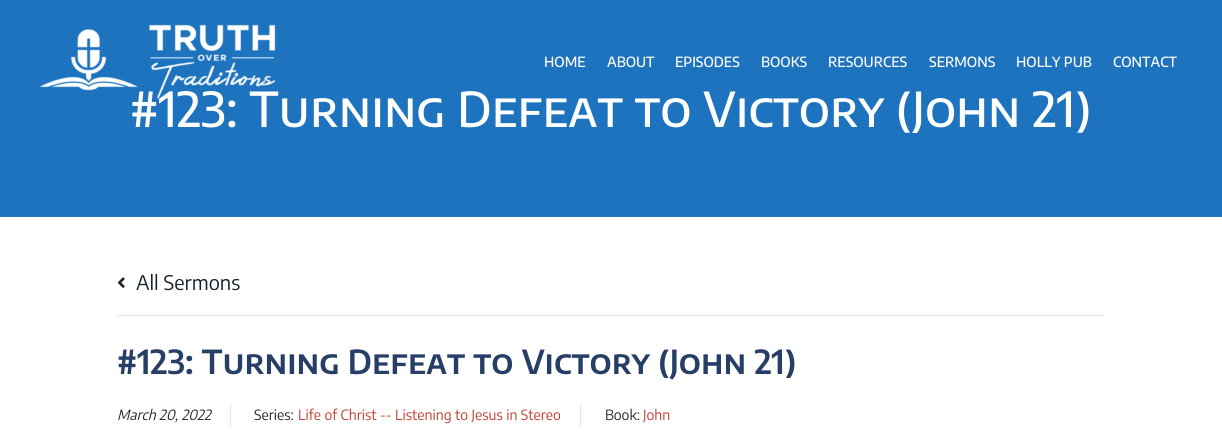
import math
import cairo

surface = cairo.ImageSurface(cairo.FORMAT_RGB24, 1222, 446)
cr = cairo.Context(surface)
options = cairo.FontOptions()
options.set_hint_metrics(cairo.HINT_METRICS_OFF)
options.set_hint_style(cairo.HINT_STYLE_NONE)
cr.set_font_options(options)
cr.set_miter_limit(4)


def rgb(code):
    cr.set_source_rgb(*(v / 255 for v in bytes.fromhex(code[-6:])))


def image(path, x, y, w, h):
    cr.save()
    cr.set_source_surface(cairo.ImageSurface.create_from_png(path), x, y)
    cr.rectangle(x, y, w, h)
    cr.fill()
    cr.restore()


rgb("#ffffff")
cr.paint()
rgb("#1e73be")
cr.rectangle(0, 0, 1222, 217)
cr.fill()
rgb("#e9e5de")
cr.rectangle(117, 315, 988, 1)
cr.fill()
image("img/2.png", 117, 277, 8, 11)
cr.rectangle(230, 404, 1, 22)
cr.fill()
cr.rectangle(580, 404, 1, 22)
cr.fill()
cr.select_font_face("Encode Sans Medium")
cr.set_font_size(14)
rgb("#ffffff")
for x, y, s in [
    (544, 67, "HOME"),
    (607, 67, "ABOUT"),
    (675, 67, "EPISODES"),
    (761, 67, "BOOKS"),
    (828, 67, "RESOURCES"),
    (929, 67, "SERMONS"),
    (1016, 67, "HOLLY PUB"),
    (1113, 67, "CONTACT"),
]:
    cr.move_to(x, y)
    cr.show_text(s)
cr.save()
cr.rectangle(92, 83, 1038, 50)
cr.clip()
cr.select_font_face("Encode Sans SC Medium")
cr.set_font_size(48)
cr.move_to(130, 127)
cr.show_text("#123: Turning Defeat to Victory (John 21)")
cr.restore()
image("img/1.png", 39, 24, 237, 79)
cr.select_font_face("Encode Sans")
cr.set_font_size(20)
rgb("#17242a")
cr.move_to(136, 290)
cr.show_text("All Sermons")
cr.select_font_face("Encode Sans SC SemiBold")
cr.set_font_size(33)
rgb("#273e67")
cr.move_to(117, 374)
cr.show_text("#123: Turning Defeat to Victory (John 21)")
cr.select_font_face("Encode Sans", cairo.FONT_SLANT_ITALIC)
cr.set_font_size(14)
rgb("#262626")
cr.move_to(117, 420)
cr.show_text("March 20, 2022")
cr.select_font_face("Encode Sans")
cr.move_to(254, 420)
cr.show_text("Series:")
rgb("#c03e2e")
cr.move_to(298, 420)
cr.show_text("Life of Christ -- Listening to Jesus in Stereo")
rgb("#262626")
cr.move_to(605, 420)
cr.show_text("Book:")
rgb("#c03e2e")
cr.move_to(643, 420)
cr.show_text("John")
surface.write_to_png("page.png")
